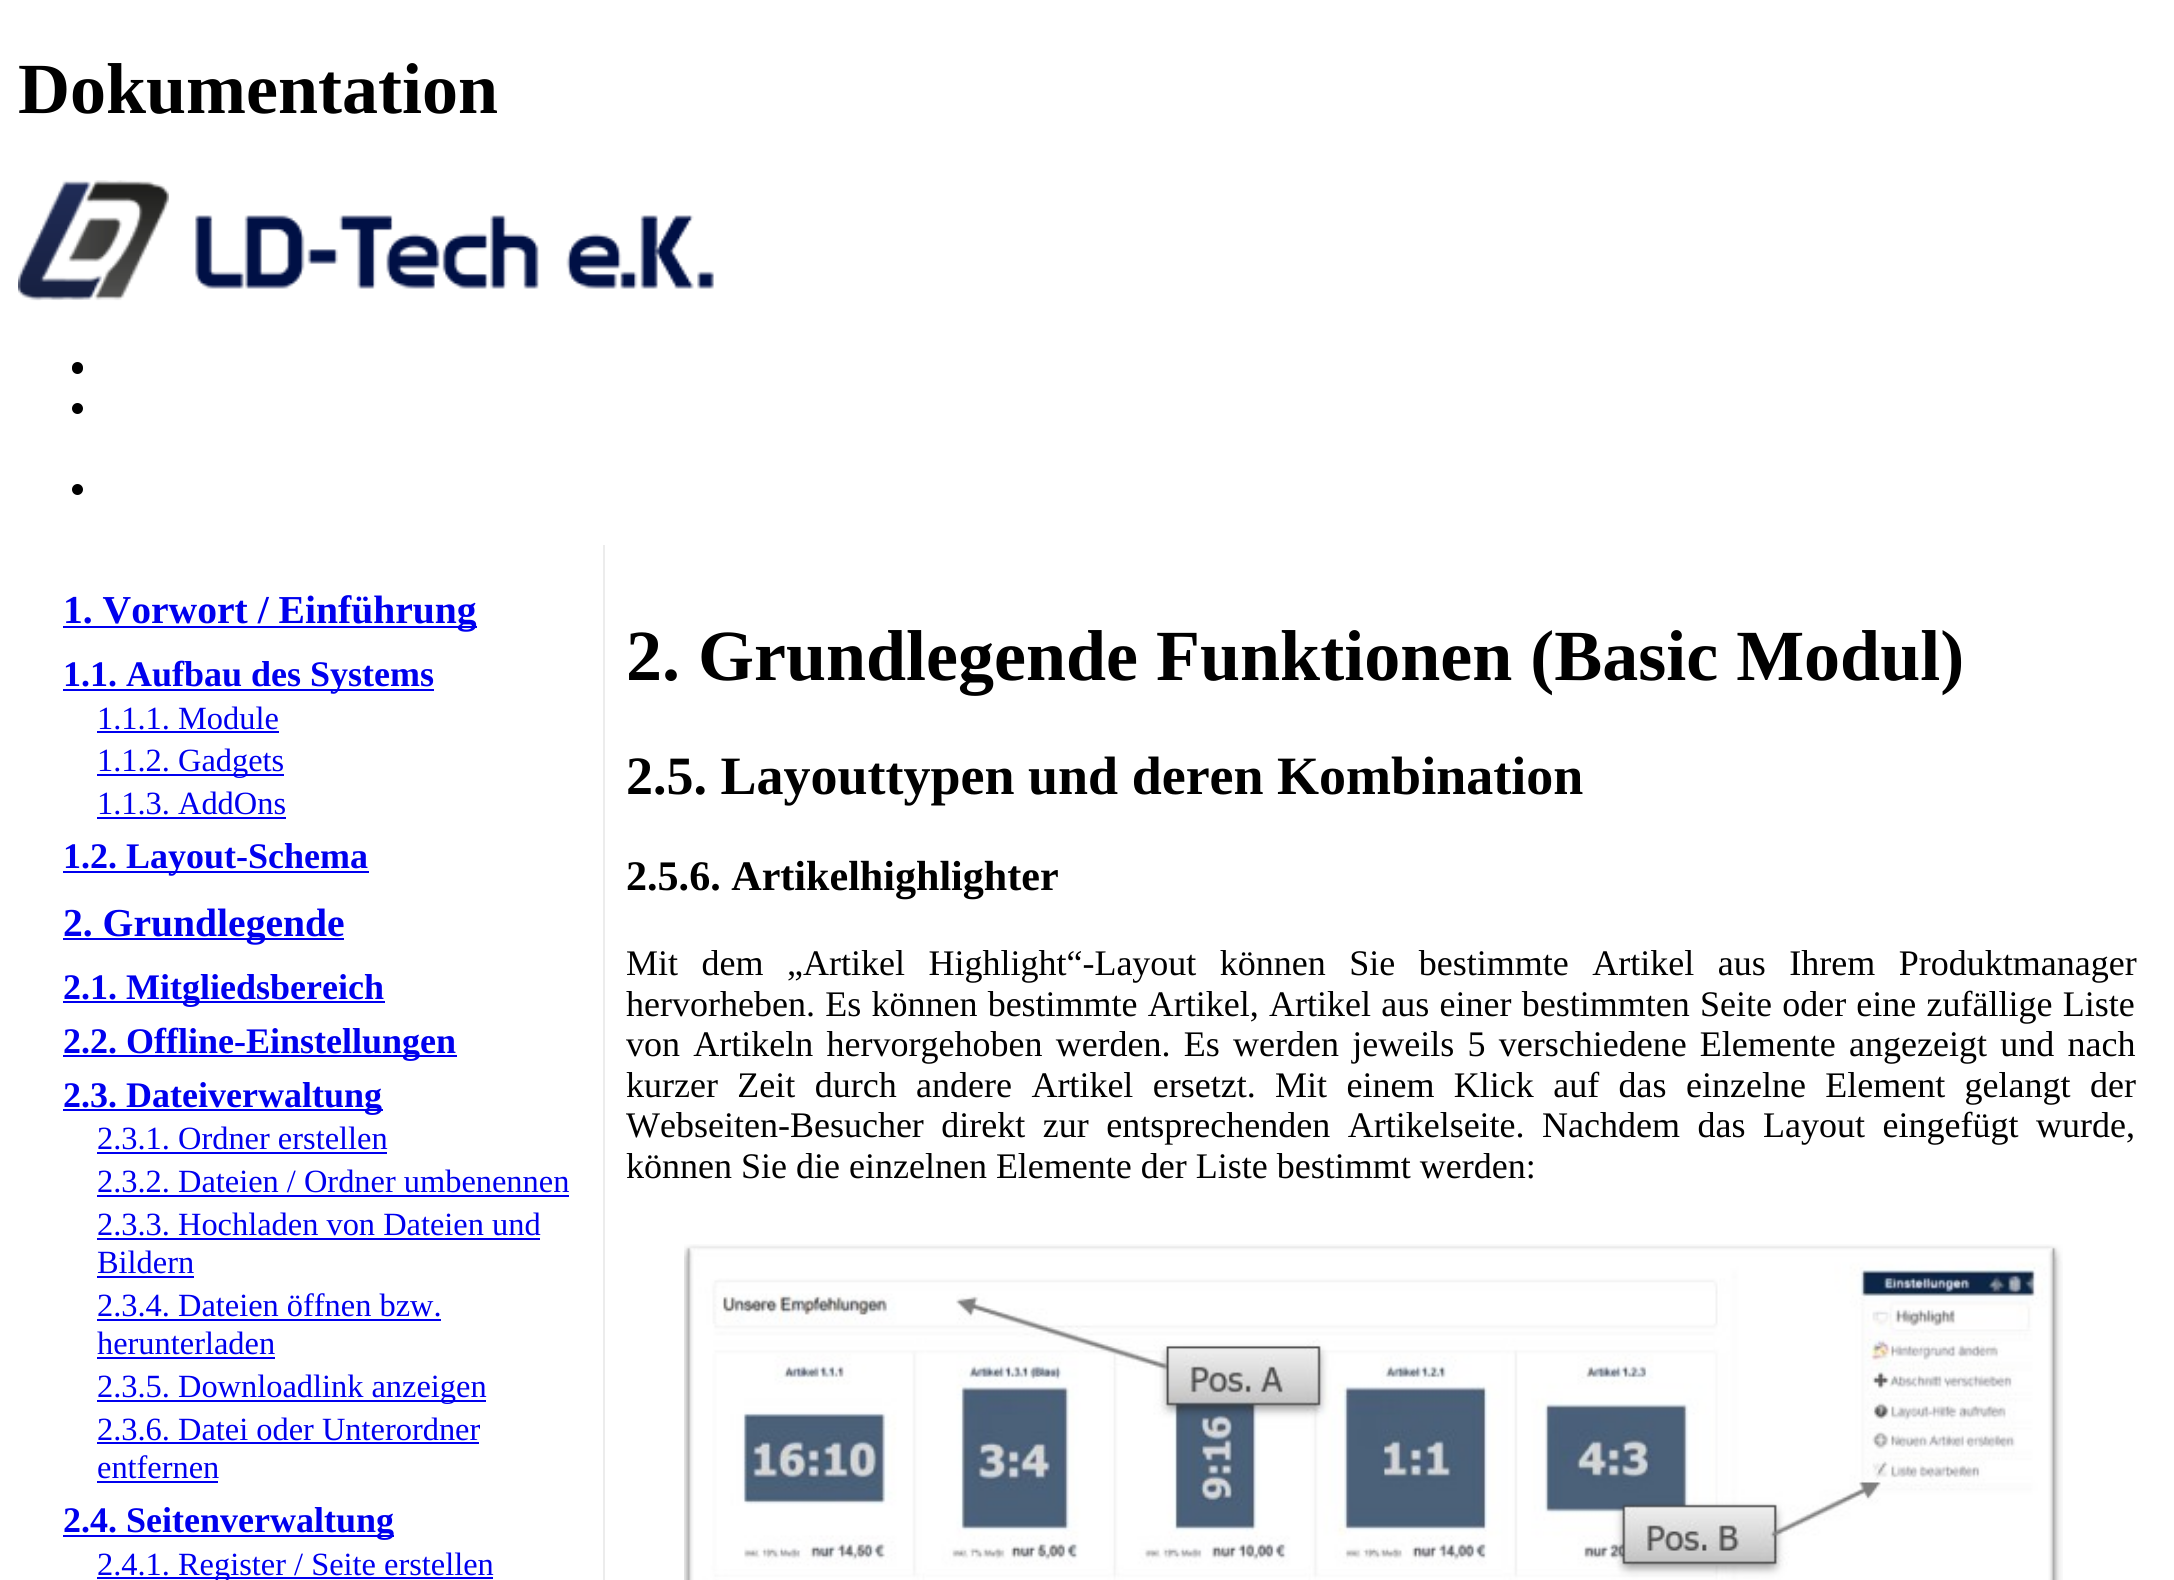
import math
import cairo

surface = cairo.ImageSurface(cairo.FORMAT_RGB24, 2174, 1580)
cr = cairo.Context(surface)
options = cairo.FontOptions()
options.set_hint_metrics(cairo.HINT_METRICS_OFF)
options.set_hint_style(cairo.HINT_STYLE_NONE)
cr.set_font_options(options)
cr.set_miter_limit(4)


def rgb(code):
    cr.set_source_rgb(*(v / 255 for v in bytes.fromhex(code[-6:])))


def tracked(x, y, s, letter, word):
    cr.move_to(x, y)
    for ch in s:
        cr.show_text(ch)
        cr.rel_move_to(letter + word * (ch == ' '), 0)


def rrect(x, y, w, h, r):
    cr.new_sub_path()
    for i, (u, v) in enumerate([(x + w - r, y + h - r), (x + r, y + h - r), (x + r, y + r), (x + w - r, y + r)]):
        cr.arc(u, v, r, i * math.pi / 2, (i + 1) * math.pi / 2)
    cr.close_path()


def image(path, x, y, w, h):
    cr.save()
    cr.set_source_surface(cairo.ImageSurface.create_from_png(path), x, y)
    cr.rectangle(x, y, w, h)
    cr.fill()
    cr.restore()


rgb("#ffffff")
cr.paint()
image("img/1.png", 18, 180, 151, 121)
image("img/2.png", 195, 215, 519, 74)
rgb("#000000")
rrect(72, 362, 11, 12, 5.5)
cr.fill()
cr.arc(77.5, 408.5, 5.5, 0, 2 * math.pi)
cr.fill()
cr.arc(77.5, 489.5, 5.5, 0, 2 * math.pi)
cr.fill()
for x, y, w, h, color in [
    (603, 545, 2, 1035, "#ececec"),
    (63, 626, 414, 2, "#0000ee"),
    (63, 689, 371, 2, "#0000ee"),
    (97, 731, 182, 2, "#0000ee"),
    (97, 774, 187, 2, "#0000ee"),
    (97, 817, 189, 2, "#0000ee"),
    (63, 871, 306, 2, "#0000ee"),
    (63, 938, 281, 2, "#0000ee"),
    (63, 1001, 322, 2, "#0000ee"),
    (63, 1055, 394, 2, "#0000ee"),
    (63, 1109, 320, 2, "#0000ee"),
    (97, 1152, 290, 2, "#0000ee"),
    (97, 1195, 472, 2, "#0000ee"),
    (97, 1238, 443, 2, "#0000ee"),
    (97, 1276, 97, 2, "#0000ee"),
    (97, 1319, 344, 2, "#0000ee"),
    (97, 1357, 178, 2, "#0000ee"),
    (97, 1400, 389, 2, "#0000ee"),
    (97, 1442, 382, 2, "#0000ee"),
    (97, 1481, 121, 2, "#0000ee"),
    (63, 1535, 331, 2, "#0000ee"),
    (97, 1577, 396, 2, "#0000ee"),
]:
    rgb(color)
    cr.rectangle(x, y, w, h)
    cr.fill()
image("img/3.png", 684, 1244, 1379, 336)
cr.select_font_face("Liberation Serif", cairo.FONT_SLANT_NORMAL, cairo.FONT_WEIGHT_BOLD)
cr.set_font_size(72)
rgb("#000000")
cr.move_to(18, 113)
cr.show_text("Dokumentation")
cr.set_font_size(39.6)
rgb("#0000ee")
cr.move_to(63, 623)
cr.show_text("1. Vorwort / Einführung")
cr.set_font_size(36)
cr.move_to(63, 686)
cr.show_text("1.1. Aufbau des Systems")
cr.select_font_face("Liberation Serif")
cr.set_font_size(32.4)
for x, y, s in [
    (97, 729, "1.1.1. Module"),
    (97, 771, "1.1.2. Gadgets"),
    (97, 814, "1.1.3. AddOns"),
]:
    cr.move_to(x, y)
    cr.show_text(s)
cr.select_font_face("Liberation Serif", cairo.FONT_SLANT_NORMAL, cairo.FONT_WEIGHT_BOLD)
cr.set_font_size(36)
cr.move_to(63, 868)
cr.show_text("1.2. Layout-Schema")
cr.set_font_size(39.6)
cr.move_to(63, 936)
cr.show_text("2. Grundlegende")
cr.set_font_size(36)
for x, y, s in [
    (63, 999, "2.1. Mitgliedsbereich"),
    (63, 1053, "2.2. Offline-Einstellungen"),
    (63, 1107, "2.3. Dateiverwaltung"),
]:
    cr.move_to(x, y)
    cr.show_text(s)
cr.select_font_face("Liberation Serif")
cr.set_font_size(32.4)
for x, y, s in [
    (97, 1149, "2.3.1. Ordner erstellen"),
    (97, 1192, "2.3.2. Dateien / Ordner umbenennen"),
    (97, 1235, "2.3.3. Hochladen von Dateien und"),
    (97, 1273, "Bildern"),
    (97, 1316, "2.3.4. Dateien öffnen bzw."),
    (97, 1354, "herunterladen"),
    (97, 1397, "2.3.5. Downloadlink anzeigen"),
    (97, 1440, "2.3.6. Datei oder Unterordner"),
    (97, 1478, "entfernen"),
]:
    cr.move_to(x, y)
    cr.show_text(s)
cr.select_font_face("Liberation Serif", cairo.FONT_SLANT_NORMAL, cairo.FONT_WEIGHT_BOLD)
cr.set_font_size(36)
cr.move_to(63, 1532)
cr.show_text("2.4. Seitenverwaltung")
cr.select_font_face("Liberation Serif")
cr.set_font_size(32.4)
cr.move_to(97, 1575)
cr.show_text("2.4.1. Register / Seite erstellen")
cr.select_font_face("Liberation Serif", cairo.FONT_SLANT_NORMAL, cairo.FONT_WEIGHT_BOLD)
cr.set_font_size(72)
rgb("#000000")
cr.move_to(626, 680)
cr.show_text("2. Grundlegende Funktionen (Basic Modul)")
cr.set_font_size(54)
cr.move_to(626, 794)
cr.show_text("2.5. Layouttypen und deren Kombination")
cr.set_font_size(42.1)
cr.move_to(626, 890)
cr.show_text("2.5.6. Artikelhighlighter")
cr.select_font_face("Liberation Serif")
cr.set_font_size(36)
tracked(626, 975, "Mit dem „Artikel Highlight“-Layout können Sie bestimmte Artikel aus Ihrem Produktmanager", 0, 14.5)
tracked(626, 1016, "hervorheben. Es können bestimmte Artikel, Artikel aus einer bestimmten Seite oder eine zufällige Liste", 0, 1.25)
tracked(626, 1056, "von Artikeln hervorgehoben werden. Es werden jeweils 5 verschiedene Elemente angezeigt und nach", 0, 4.25)
tracked(626, 1097, "kurzer Zeit durch andere Artikel ersetzt. Mit einem Klick auf das einzelne Element gelangt der", 0, 10.4)
tracked(626, 1137, "Webseiten-Besucher direkt zur entsprechenden Artikelseite. Nachdem das Layout eingefügt wurde,", 0, 8.5)
cr.move_to(626, 1178)
cr.show_text("können Sie die einzelnen Elemente der Liste bestimmt werden:")
surface.write_to_png("page.png")
